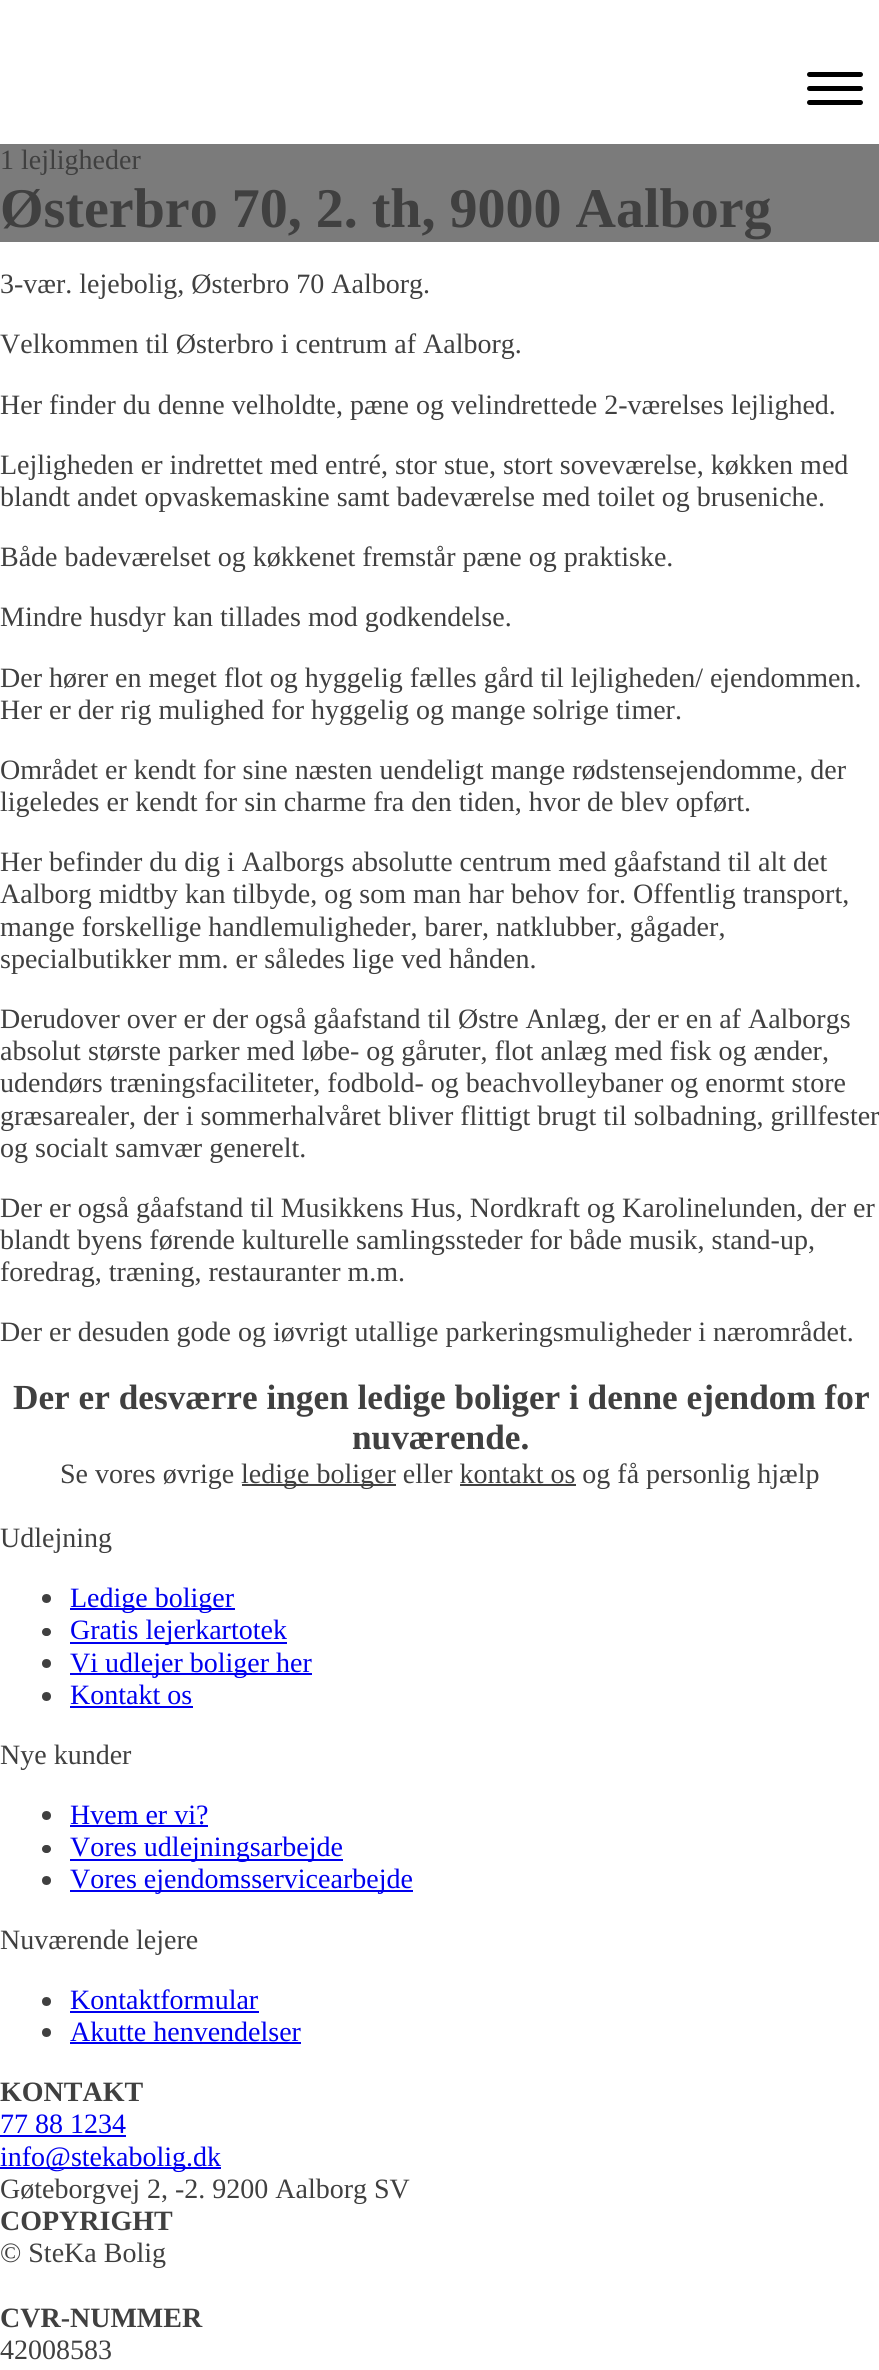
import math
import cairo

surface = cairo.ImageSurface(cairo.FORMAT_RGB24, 879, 2370)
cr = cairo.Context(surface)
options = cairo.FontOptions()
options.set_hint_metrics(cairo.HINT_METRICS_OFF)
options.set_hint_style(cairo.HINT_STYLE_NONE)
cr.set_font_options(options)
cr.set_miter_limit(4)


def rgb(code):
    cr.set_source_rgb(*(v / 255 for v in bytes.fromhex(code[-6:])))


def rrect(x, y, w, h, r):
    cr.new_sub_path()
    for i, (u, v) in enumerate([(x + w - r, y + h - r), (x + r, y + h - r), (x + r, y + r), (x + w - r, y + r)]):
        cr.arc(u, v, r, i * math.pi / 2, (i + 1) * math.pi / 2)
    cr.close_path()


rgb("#ffffff")
cr.paint()
rgb("#000000")
rrect(807, 72, 56, 5, 2.5)
cr.fill()
rrect(807, 86, 56, 5, 2.5)
cr.fill()
rrect(807, 100, 56, 5, 2.5)
cr.fill()
for x, y, w, h, color in [
    (0, 144, 879, 98, "#7b7b7b"),
    (242, 1484, 154, 2, "#404040"),
    (460, 1484, 116, 2, "#404040"),
]:
    rgb(color)
    cr.rectangle(x, y, w, h)
    cr.fill()
cr.arc(46.5, 1598.5, 4.5, 0, 2 * math.pi)
cr.fill()
rgb("#0000ee")
cr.rectangle(70, 1608, 165, 2)
cr.fill()
rgb("#404040")
rrect(42, 1628, 9, 8, 4)
cr.fill()
rgb("#0000ee")
cr.rectangle(70, 1642, 217, 2)
cr.fill()
rgb("#404040")
cr.arc(46.5, 1663.5, 4.5, 0, 2 * math.pi)
cr.fill()
rgb("#0000ee")
cr.rectangle(70, 1673, 242, 2)
cr.fill()
rgb("#404040")
cr.arc(46.5, 1696.5, 4.5, 0, 2 * math.pi)
cr.fill()
rgb("#0000ee")
cr.rectangle(70, 1706, 123, 2)
cr.fill()
rgb("#404040")
cr.arc(46.5, 1815.5, 4.5, 0, 2 * math.pi)
cr.fill()
rgb("#0000ee")
cr.rectangle(70, 1825, 138, 2)
cr.fill()
rgb("#404040")
rrect(42, 1845, 9, 8, 4)
cr.fill()
rgb("#0000ee")
cr.rectangle(70, 1859, 273, 2)
cr.fill()
rgb("#404040")
cr.arc(46.5, 1880.5, 4.5, 0, 2 * math.pi)
cr.fill()
rgb("#0000ee")
cr.rectangle(70, 1890, 343, 2)
cr.fill()
rgb("#404040")
cr.arc(46.5, 2001.5, 4.5, 0, 2 * math.pi)
cr.fill()
rgb("#0000ee")
cr.rectangle(70, 2011, 189, 2)
cr.fill()
rgb("#404040")
cr.arc(46.5, 2032.5, 4.5, 0, 2 * math.pi)
cr.fill()
for x, y, w, h, color in [
    (70, 2042, 231, 2, "#0000ee"),
    (0, 2135, 126, 2, "#0000ee"),
    (0, 2167, 221, 2, "#0000ee"),
]:
    rgb(color)
    cr.rectangle(x, y, w, h)
    cr.fill()
cr.select_font_face("Liberation Serif")
cr.set_font_size(28)
rgb("#404040")
cr.move_to(0, 169)
cr.show_text("1 lejligheder")
cr.select_font_face("Liberation Serif", cairo.FONT_SLANT_NORMAL, cairo.FONT_WEIGHT_BOLD)
cr.set_font_size(56)
cr.move_to(0, 227)
cr.show_text("Østerbro 70, 2. th, 9000 Aalborg")
cr.select_font_face("Liberation Serif")
cr.set_font_size(28)
for x, y, s in [
    (0, 293, "3-vær. lejebolig, Østerbro 70 Aalborg."),
    (0, 353, "Velkommen til Østerbro i centrum af Aalborg."),
    (0, 414, "Her finder du denne velholdte, pæne og velindrettede 2-værelses lejlighed."),
    (0, 474, "Lejligheden er indrettet med entré, stor stue, stort soveværelse, køkken med"),
    (0, 506, "blandt andet opvaskemaskine samt badeværelse med toilet og bruseniche."),
    (0, 566, "Både badeværelset og køkkenet fremstår pæne og praktiske."),
    (0, 626, "Mindre husdyr kan tillades mod godkendelse."),
    (0, 687, "Der hører en meget flot og hyggelig fælles gård til lejligheden/ ejendommen."),
    (0, 719, "Her er der rig mulighed for hyggelig og mange solrige timer."),
    (0, 779, "Området er kendt for sine næsten uendeligt mange rødstensejendomme, der"),
    (0, 811, "ligeledes er kendt for sin charme fra den tiden, hvor de blev opført."),
    (0, 871, "Her befinder du dig i Aalborgs absolutte centrum med gåafstand til alt det"),
    (0, 903, "Aalborg midtby kan tilbyde, og som man har behov for. Offentlig transport,"),
    (0, 936, "mange forskellige handlemuligheder, barer, natklubber, gågader,"),
    (0, 968, "specialbutikker mm. er således lige ved hånden."),
    (0, 1028, "Derudover over er der også gåafstand til Østre Anlæg, der er en af Aalborgs"),
    (0, 1060, "absolut største parker med løbe- og gåruter, flot anlæg med fisk og ænder,"),
    (0, 1092, "udendørs træningsfaciliteter, fodbold- og beachvolleybaner og enormt store"),
    (0, 1125, "græsarealer, der i sommerhalvåret bliver flittigt brugt til solbadning, grillfester"),
    (0, 1157, "og socialt samvær generelt."),
    (0, 1217, "Der er også gåafstand til Musikkens Hus, Nordkraft og Karolinelunden, der er"),
    (0, 1249, "blandt byens førende kulturelle samlingssteder for både musik, stand-up,"),
    (0, 1281, "foredrag, træning, restauranter m.m."),
    (0, 1341, "Der er desuden gode og iøvrigt utallige parkeringsmuligheder i nærområdet."),
]:
    cr.move_to(x, y)
    cr.show_text(s)
cr.select_font_face("Liberation Serif", cairo.FONT_SLANT_NORMAL, cairo.FONT_WEIGHT_BOLD)
cr.set_font_size(35.25)
cr.move_to(13, 1409)
cr.show_text("Der er desværre ingen ledige boliger i denne ejendom for")
cr.move_to(352, 1449)
cr.show_text("nuværende.")
cr.select_font_face("Liberation Serif")
cr.set_font_size(28)
for x, y, s in [
    (60, 1483, "Se vores øvrige"),
    (241, 1483, "ledige boliger eller kontakt os og få personlig hjælp"),
    (0, 1547, "Udlejning"),
]:
    cr.move_to(x, y)
    cr.show_text(s)
rgb("#0000ee")
for x, y, s in [
    (70, 1607, "Ledige boliger"),
    (70, 1639, "Gratis lejerkartotek"),
    (70, 1672, "Vi udlejer boliger her"),
    (70, 1704, "Kontakt os"),
]:
    cr.move_to(x, y)
    cr.show_text(s)
rgb("#404040")
cr.move_to(0, 1764)
cr.show_text("Nye kunder")
rgb("#0000ee")
for x, y, s in [
    (70, 1824, "Hvem er vi?"),
    (70, 1856, "Vores udlejningsarbejde"),
    (70, 1888, "Vores ejendomsservicearbejde"),
]:
    cr.move_to(x, y)
    cr.show_text(s)
rgb("#404040")
cr.move_to(0, 1949)
cr.show_text("Nuværende lejere")
rgb("#0000ee")
cr.move_to(70, 2009)
cr.show_text("Kontaktformular")
cr.move_to(70, 2041)
cr.show_text("Akutte henvendelser")
cr.select_font_face("Liberation Serif", cairo.FONT_SLANT_NORMAL, cairo.FONT_WEIGHT_BOLD)
rgb("#404040")
cr.move_to(0, 2101)
cr.show_text("KONTAKT")
cr.select_font_face("Liberation Serif")
rgb("#0000ee")
cr.move_to(0, 2133)
cr.show_text("77 88 1234")
cr.move_to(0, 2166)
cr.show_text("info@stekabolig.dk")
rgb("#404040")
cr.move_to(0, 2198)
cr.show_text("Gøteborgvej 2, -2. 9200 Aalborg SV")
cr.select_font_face("Liberation Serif", cairo.FONT_SLANT_NORMAL, cairo.FONT_WEIGHT_BOLD)
cr.move_to(0, 2230)
cr.show_text("COPYRIGHT")
cr.select_font_face("Liberation Serif")
cr.move_to(0, 2262)
cr.show_text("© SteKa Bolig")
cr.select_font_face("Liberation Serif", cairo.FONT_SLANT_NORMAL, cairo.FONT_WEIGHT_BOLD)
cr.move_to(0, 2327)
cr.show_text("CVR-NUMMER")
cr.select_font_face("Liberation Serif")
cr.move_to(0, 2359)
cr.show_text("42008583")
surface.write_to_png("page.png")
